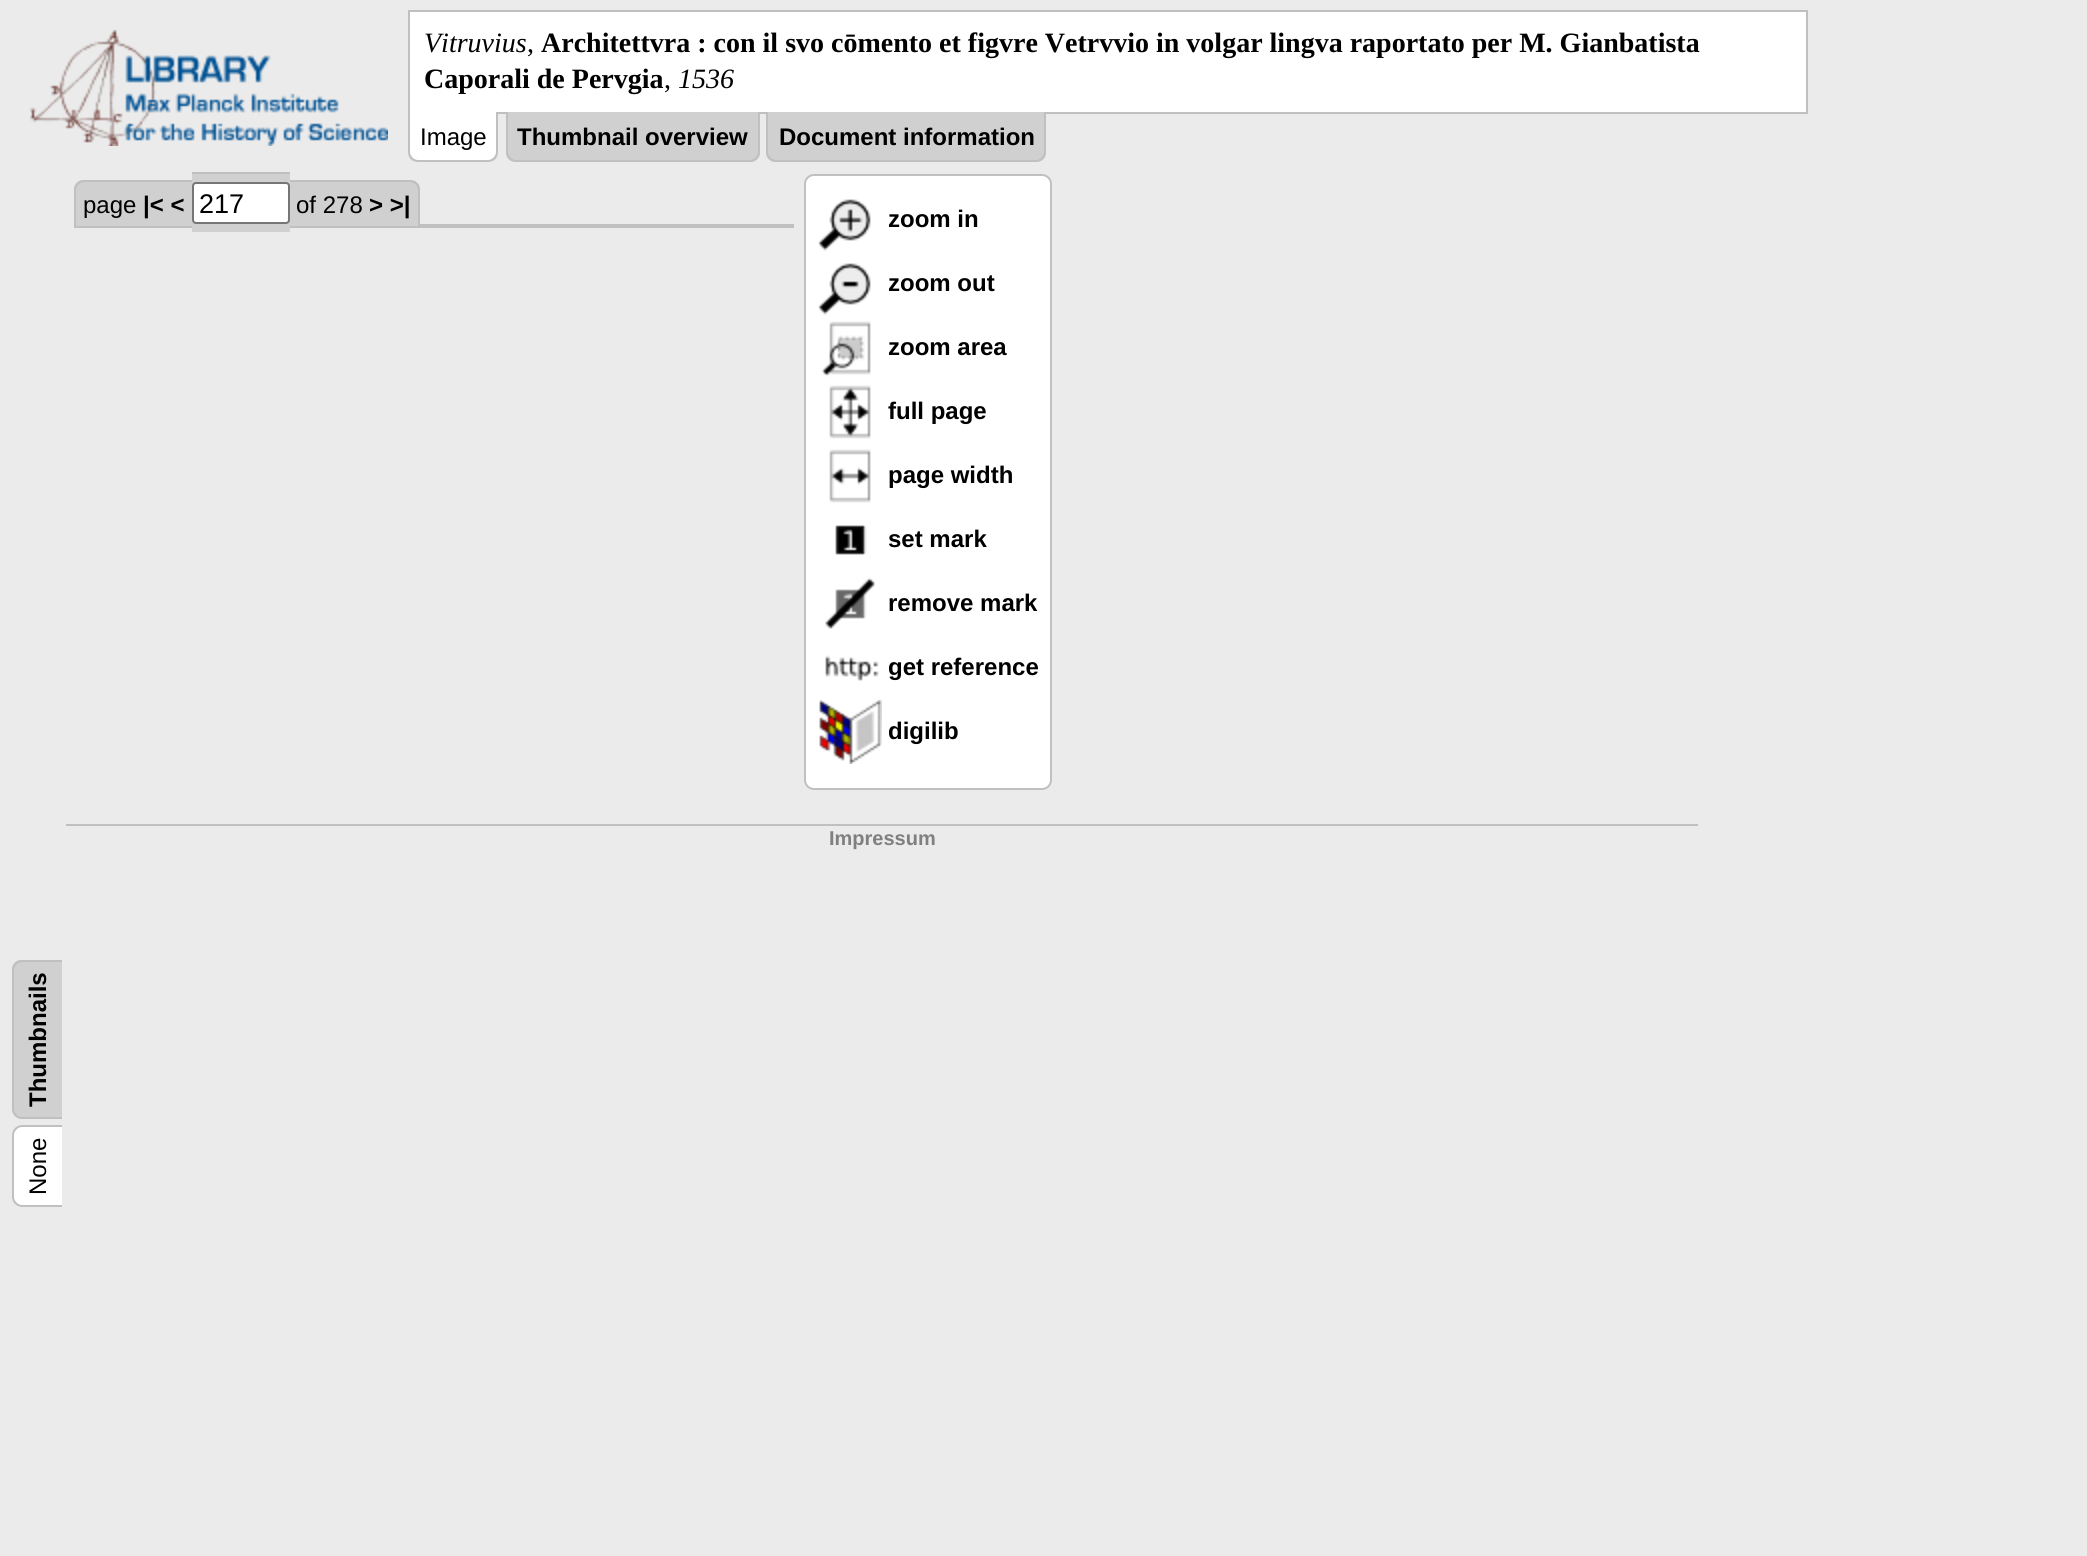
import math
import cairo

surface = cairo.ImageSurface(cairo.FORMAT_RGB24, 2087, 1556)
cr = cairo.Context(surface)
options = cairo.FontOptions()
options.set_hint_metrics(cairo.HINT_METRICS_OFF)
options.set_hint_style(cairo.HINT_STYLE_NONE)
cr.set_font_options(options)
cr.set_miter_limit(4)


def rgb(code):
    cr.set_source_rgb(*(v / 255 for v in bytes.fromhex(code[-6:])))


def rrect(x, y, w, h, r):
    cr.new_sub_path()
    for i, (u, v) in enumerate([(x + w - r, y + h - r), (x + r, y + h - r), (x + r, y + r), (x + w - r, y + r)]):
        cr.arc(u, v, r, i * math.pi / 2, (i + 1) * math.pi / 2)
    cr.close_path()


def image(path, x, y, w, h):
    cr.save()
    cr.set_source_surface(cairo.ImageSurface.create_from_png(path), x, y)
    cr.rectangle(x, y, w, h)
    cr.fill()
    cr.restore()


rgb("#ebebeb")
cr.paint()
image("img/1.png", 30, 30, 358, 116)
rgb("#ffffff")
cr.rectangle(409, 11, 1398, 102)
cr.fill_preserve()
rgb("#c0c0c0")
cr.stroke()
rgb("#ffffff")
cr.new_path()
cr.move_to(408, 112)
cr.line_to(498, 112)
cr.line_to(498, 152)
cr.curve_to(498, 157.5, 493.5, 162, 488, 162)
cr.line_to(418, 162)
cr.curve_to(412.5, 162, 408, 157.5, 408, 152)
cr.close_path()
cr.fill()
rgb("#c0c0c0")
cr.set_fill_rule(cairo.FILL_RULE_EVEN_ODD)
cr.new_path()
cr.move_to(408, 112)
cr.line_to(498, 112)
cr.line_to(498, 152)
cr.curve_to(498, 158, 494, 162, 488, 162)
cr.line_to(418, 162)
cr.curve_to(412, 162, 408, 158, 408, 152)
cr.close_path()
cr.move_to(410, 112)
cr.line_to(496, 112)
cr.line_to(496, 152)
cr.curve_to(496, 156, 492, 160, 488, 160)
cr.line_to(418, 160)
cr.curve_to(414, 160, 410, 156, 410, 152)
cr.close_path()
cr.fill()
rgb("#d0d0d0")
cr.new_path()
cr.move_to(506, 112)
cr.line_to(760, 112)
cr.line_to(760, 152)
cr.curve_to(760, 157.5, 755.5, 162, 750, 162)
cr.line_to(516, 162)
cr.curve_to(510.5, 162, 506, 157.5, 506, 152)
cr.close_path()
cr.fill()
rgb("#c0c0c0")
cr.new_path()
cr.move_to(506, 112)
cr.line_to(760, 112)
cr.line_to(760, 152)
cr.curve_to(760, 158, 756, 162, 750, 162)
cr.line_to(516, 162)
cr.curve_to(510, 162, 506, 158, 506, 152)
cr.close_path()
cr.move_to(508, 112)
cr.line_to(758, 112)
cr.line_to(758, 152)
cr.curve_to(758, 156, 754, 160, 750, 160)
cr.line_to(516, 160)
cr.curve_to(512, 160, 508, 156, 508, 152)
cr.close_path()
cr.fill()
rgb("#d0d0d0")
cr.new_path()
cr.move_to(766, 112)
cr.line_to(1046, 112)
cr.line_to(1046, 152)
cr.curve_to(1046, 157.5, 1041.5, 162, 1036, 162)
cr.line_to(776, 162)
cr.curve_to(770.5, 162, 766, 157.5, 766, 152)
cr.close_path()
cr.fill()
rgb("#c0c0c0")
cr.new_path()
cr.move_to(766, 112)
cr.line_to(1046, 112)
cr.line_to(1046, 152)
cr.curve_to(1046, 158, 1042, 162, 1036, 162)
cr.line_to(776, 162)
cr.curve_to(770, 162, 766, 158, 766, 152)
cr.close_path()
cr.move_to(768, 112)
cr.line_to(1044, 112)
cr.line_to(1044, 152)
cr.curve_to(1044, 156, 1040, 160, 1036, 160)
cr.line_to(776, 160)
cr.curve_to(772, 160, 768, 156, 768, 152)
cr.close_path()
cr.fill()
cr.rectangle(74, 224, 720, 4)
cr.fill()
rgb("#d0d0d0")
cr.new_path()
cr.move_to(84, 180)
cr.line_to(144, 180)
cr.line_to(144, 226)
cr.line_to(74, 226)
cr.line_to(74, 190)
cr.curve_to(74, 184.5, 78.5, 180, 84, 180)
cr.close_path()
cr.fill()
rgb("#c0c0c0")
cr.new_path()
cr.move_to(84, 180)
cr.line_to(144, 180)
cr.line_to(144, 226)
cr.line_to(74, 226)
cr.line_to(74, 190)
cr.curve_to(74, 184, 78, 180, 84, 180)
cr.close_path()
cr.move_to(84, 182)
cr.line_to(144, 182)
cr.line_to(144, 226)
cr.line_to(76, 226)
cr.line_to(76, 190)
cr.curve_to(76, 186, 80, 182, 84, 182)
cr.close_path()
cr.fill()
for x, y, w, h, color in [
    (144, 182, 20, 44, "#d0d0d0"),
    (144, 180, 20, 2, "#c0c0c0"),
    (164, 180, 6, 46, "#d0d0d0"),
    (164, 180, 20, 2, "#c0c0c0"),
    (170, 182, 14, 44, "#d0d0d0"),
    (184, 180, 8, 46, "#d0d0d0"),
    (184, 180, 8, 2, "#c0c0c0"),
    (192, 174, 98, 58, "#d0d0d0"),
    (192, 172, 98, 2, "#c0c0c0"),
    (290, 180, 6, 46, "#d0d0d0"),
    (290, 180, 94, 2, "#c0c0c0"),
    (296, 182, 88, 44, "#d0d0d0"),
    (384, 180, 6, 46, "#d0d0d0"),
    (384, 180, 6, 2, "#c0c0c0"),
]:
    rgb(color)
    cr.rectangle(x, y, w, h)
    cr.fill()
rgb("#d0d0d0")
cr.new_path()
cr.move_to(390, 180)
cr.line_to(410, 180)
cr.curve_to(415.5, 180, 420, 184.5, 420, 190)
cr.line_to(420, 226)
cr.line_to(390, 226)
cr.close_path()
cr.fill()
rgb("#c0c0c0")
cr.new_path()
cr.move_to(390, 180)
cr.line_to(410, 180)
cr.curve_to(416, 180, 420, 184, 420, 190)
cr.line_to(420, 226)
cr.line_to(390, 226)
cr.close_path()
cr.move_to(390, 182)
cr.line_to(410, 182)
cr.curve_to(414, 182, 418, 186, 418, 190)
cr.line_to(418, 226)
cr.line_to(390, 226)
cr.close_path()
cr.fill()
rgb("#ffffff")
rrect(193, 183, 96, 40, 3)
cr.fill_preserve()
rgb("#767676")
cr.stroke()
rgb("#ffffff")
rrect(805, 175, 246, 614, 9)
cr.fill_preserve()
rgb("#c0c0c0")
cr.stroke()
image("img/2.png", 818, 199, 53, 52)
image("img/3.png", 818, 263, 53, 52)
image("img/4.png", 821, 321, 50, 56)
image("img/5.png", 829, 385, 42, 54)
image("img/6.png", 829, 449, 42, 54)
image("img/7.png", 835, 525, 32, 30)
image("img/8.png", 825, 577, 50, 52)
image("img/9.png", 825, 655, 54, 26)
image("img/10.png", 819, 700, 63, 64)
rgb("#d0d0d0")
cr.set_fill_rule(cairo.FILL_RULE_WINDING)
cr.new_path()
cr.move_to(12, 1109)
cr.line_to(12, 970)
cr.curve_to(12, 964, 16, 960, 22, 960)
cr.line_to(62, 960)
cr.line_to(62, 1119)
cr.line_to(22, 1119)
cr.curve_to(16, 1119, 12, 1114, 12, 1109)
cr.close_path()
cr.fill()
rgb("#c0c0c0")
cr.set_fill_rule(cairo.FILL_RULE_EVEN_ODD)
cr.new_path()
cr.move_to(12, 1109)
cr.line_to(12, 970)
cr.curve_to(12, 964, 16, 960, 22, 960)
cr.line_to(62, 960)
cr.line_to(62, 1119)
cr.line_to(22, 1119)
cr.curve_to(16, 1119, 12, 1114, 12, 1109)
cr.close_path()
cr.move_to(14, 1109)
cr.line_to(14, 970)
cr.curve_to(14, 966, 18, 962, 22, 962)
cr.line_to(62, 962)
cr.line_to(62, 1117)
cr.line_to(22, 1117)
cr.curve_to(18, 1117, 14, 1113, 14, 1109)
cr.close_path()
cr.fill()
rgb("#ffffff")
cr.set_fill_rule(cairo.FILL_RULE_WINDING)
cr.new_path()
cr.move_to(12, 1197)
cr.line_to(12, 1135)
cr.curve_to(12, 1130, 16, 1125, 22, 1125)
cr.line_to(62, 1125)
cr.line_to(62, 1207)
cr.line_to(22, 1207)
cr.curve_to(16, 1207, 12, 1202, 12, 1197)
cr.close_path()
cr.fill()
rgb("#c0c0c0")
cr.set_fill_rule(cairo.FILL_RULE_EVEN_ODD)
cr.new_path()
cr.move_to(12, 1197)
cr.line_to(12, 1135)
cr.curve_to(12, 1130, 16, 1125, 22, 1125)
cr.line_to(62, 1125)
cr.line_to(62, 1207)
cr.line_to(22, 1207)
cr.curve_to(16, 1207, 12, 1202, 12, 1197)
cr.close_path()
cr.move_to(14, 1197)
cr.line_to(14, 1135)
cr.curve_to(14, 1131, 18, 1127, 22, 1127)
cr.line_to(62, 1127)
cr.line_to(62, 1205)
cr.line_to(22, 1205)
cr.curve_to(18, 1205, 14, 1201, 14, 1197)
cr.close_path()
cr.fill()
cr.rectangle(66, 824, 1632, 2)
cr.fill()
cr.select_font_face("Liberation Serif", cairo.FONT_SLANT_ITALIC)
cr.set_font_size(28)
rgb("#000000")
cr.move_to(424, 52)
cr.show_text("Vitruvius")
cr.select_font_face("Liberation Serif")
cr.move_to(527, 52)
cr.show_text(",")
cr.select_font_face("Liberation Serif", cairo.FONT_SLANT_NORMAL, cairo.FONT_WEIGHT_BOLD)
cr.move_to(541, 52)
cr.show_text("Architettvra : con il svo cōmento et figvre Vetrvvio in volgar lingva raportato per M. Gianbatista")
cr.move_to(424, 88)
cr.show_text("Caporali de Pervgia")
cr.select_font_face("Liberation Serif")
cr.move_to(664, 88)
cr.show_text(",")
cr.select_font_face("Liberation Serif", cairo.FONT_SLANT_ITALIC)
cr.move_to(678, 88)
cr.show_text("1536")
cr.select_font_face("Liberation Sans")
cr.set_font_size(24)
cr.move_to(420, 145)
cr.show_text("Image")
cr.select_font_face("Liberation Sans", cairo.FONT_SLANT_NORMAL, cairo.FONT_WEIGHT_BOLD)
cr.move_to(517, 145)
cr.show_text("Thumbnail overview")
cr.move_to(779, 145)
cr.show_text("Document information")
cr.select_font_face("Liberation Sans")
cr.move_to(83, 213)
cr.show_text("page")
cr.select_font_face("Liberation Sans", cairo.FONT_SLANT_NORMAL, cairo.FONT_WEIGHT_BOLD)
cr.move_to(143, 213)
cr.show_text("|< <")
cr.select_font_face("Liberation Sans")
cr.set_font_size(27)
cr.move_to(199, 213)
cr.show_text("217")
cr.set_font_size(24)
cr.move_to(296, 213)
cr.show_text("of 278")
cr.select_font_face("Liberation Sans", cairo.FONT_SLANT_NORMAL, cairo.FONT_WEIGHT_BOLD)
for x, y, s in [
    (369, 213, "> >|"),
    (888, 227, "zoom in"),
    (888, 291, "zoom out"),
    (888, 355, "zoom area"),
    (888, 419, "full page"),
    (888, 483, "page width"),
    (888, 547, "set mark"),
    (888, 611, "remove mark"),
    (888, 675, "get reference"),
    (888, 739, "digilib"),
]:
    cr.move_to(x, y)
    cr.show_text(s)
cr.save()
cr.translate(46, 1107)
cr.rotate(-90 * math.pi / 180)
cr.move_to(0, 0)
cr.show_text("Thumbnails")
cr.restore()
cr.select_font_face("Liberation Sans")
cr.save()
cr.translate(46, 1195)
cr.rotate(-90 * math.pi / 180)
cr.move_to(0, 0)
cr.show_text("None")
cr.restore()
cr.select_font_face("Liberation Sans", cairo.FONT_SLANT_NORMAL, cairo.FONT_WEIGHT_BOLD)
cr.set_font_size(20)
rgb("#808080")
cr.move_to(829, 845)
cr.show_text("Impressum")
surface.write_to_png("page.png")
